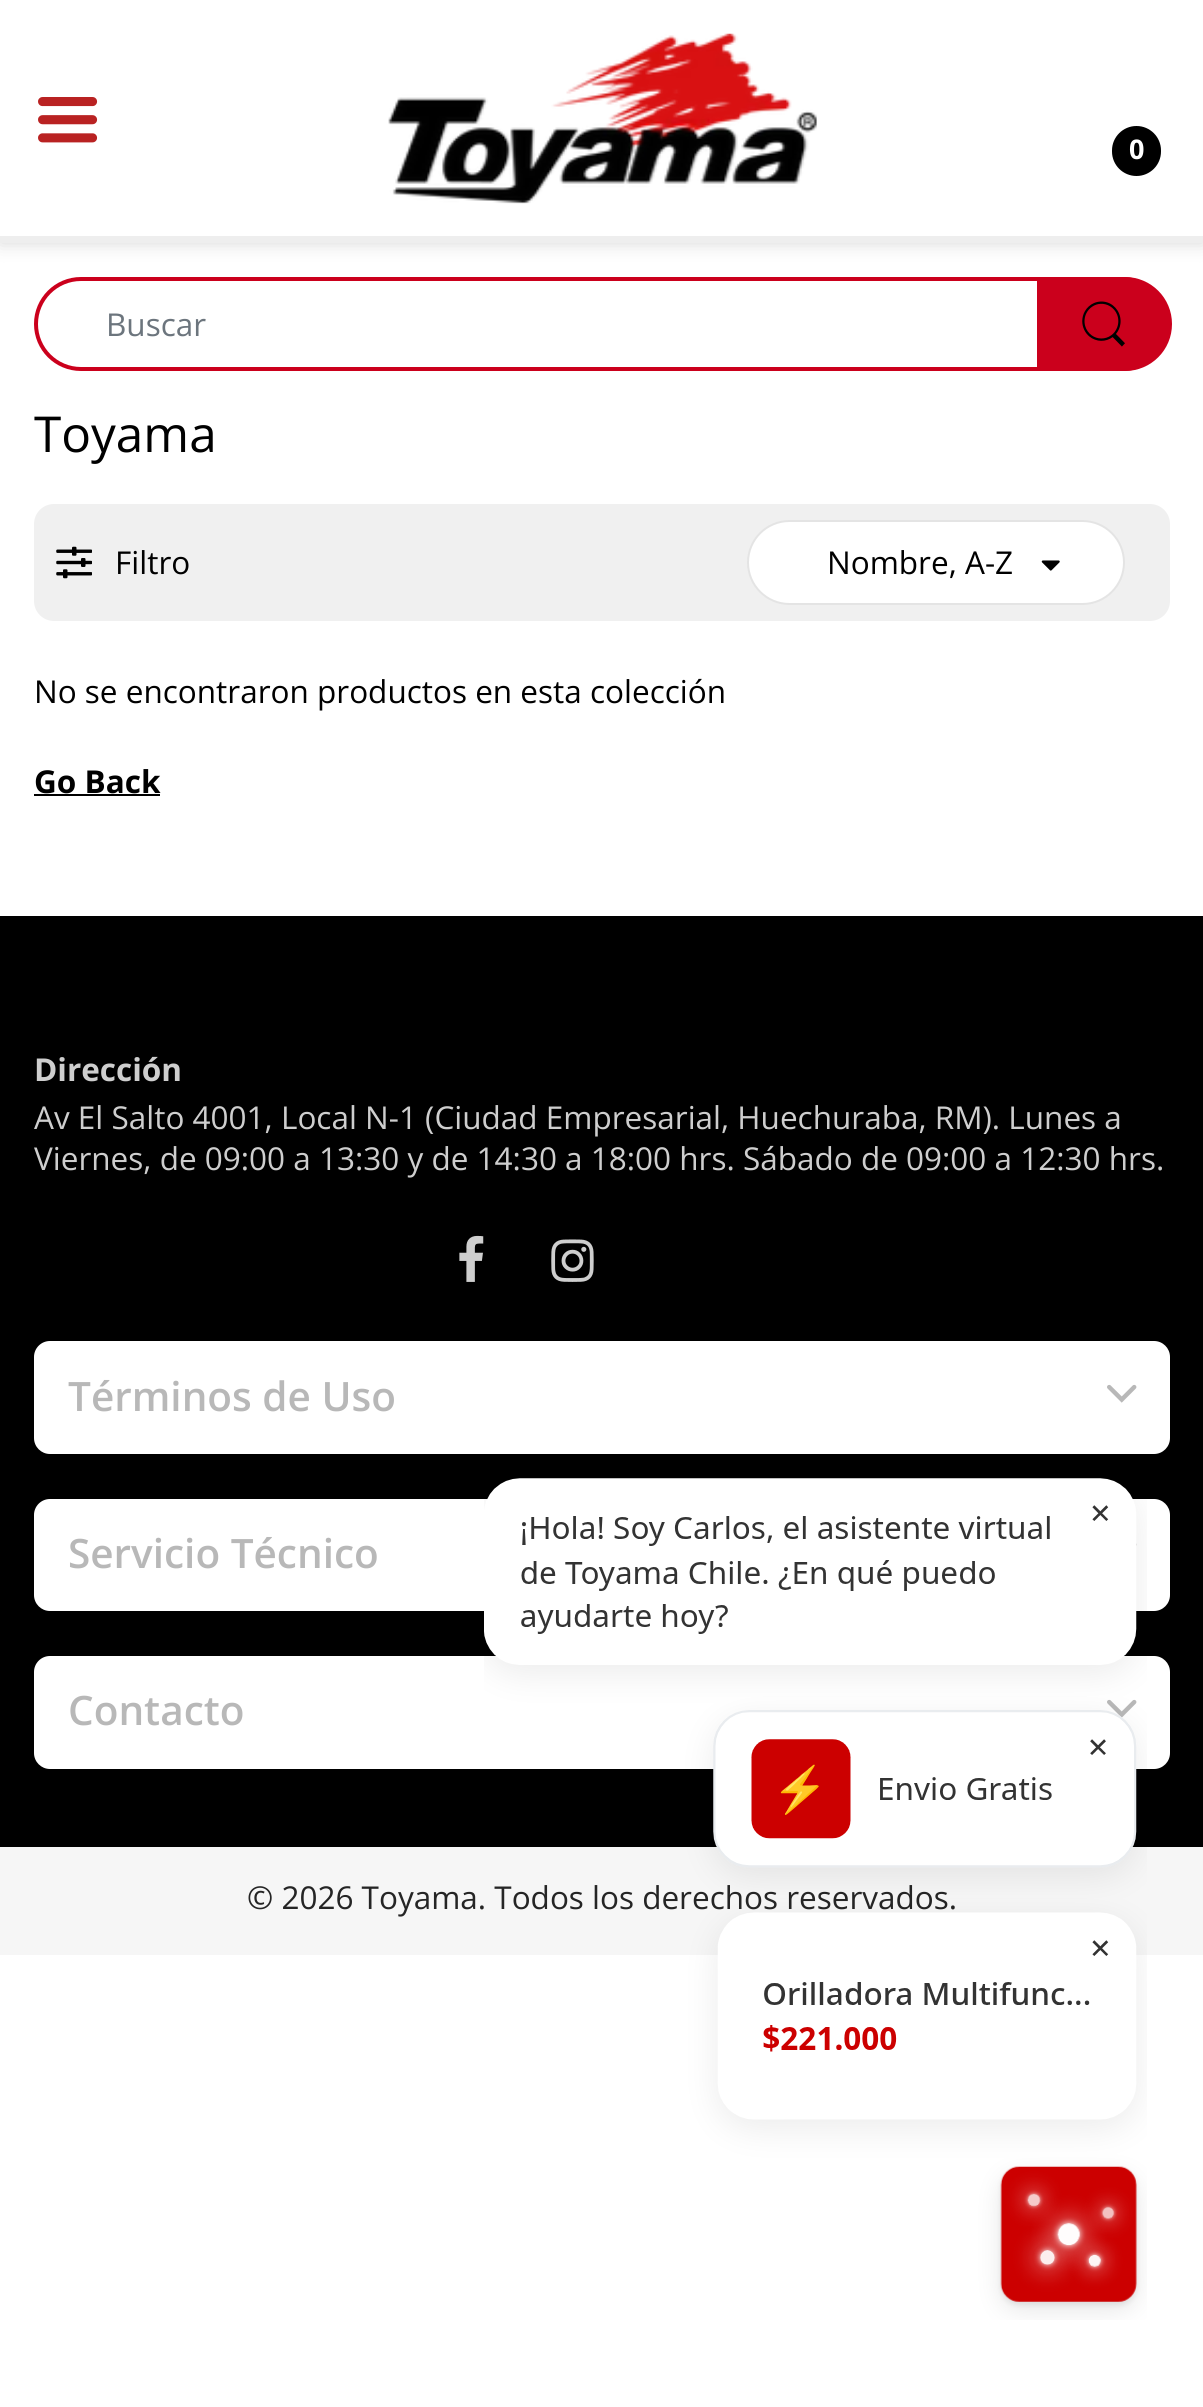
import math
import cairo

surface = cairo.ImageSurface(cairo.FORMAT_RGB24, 1203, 2407)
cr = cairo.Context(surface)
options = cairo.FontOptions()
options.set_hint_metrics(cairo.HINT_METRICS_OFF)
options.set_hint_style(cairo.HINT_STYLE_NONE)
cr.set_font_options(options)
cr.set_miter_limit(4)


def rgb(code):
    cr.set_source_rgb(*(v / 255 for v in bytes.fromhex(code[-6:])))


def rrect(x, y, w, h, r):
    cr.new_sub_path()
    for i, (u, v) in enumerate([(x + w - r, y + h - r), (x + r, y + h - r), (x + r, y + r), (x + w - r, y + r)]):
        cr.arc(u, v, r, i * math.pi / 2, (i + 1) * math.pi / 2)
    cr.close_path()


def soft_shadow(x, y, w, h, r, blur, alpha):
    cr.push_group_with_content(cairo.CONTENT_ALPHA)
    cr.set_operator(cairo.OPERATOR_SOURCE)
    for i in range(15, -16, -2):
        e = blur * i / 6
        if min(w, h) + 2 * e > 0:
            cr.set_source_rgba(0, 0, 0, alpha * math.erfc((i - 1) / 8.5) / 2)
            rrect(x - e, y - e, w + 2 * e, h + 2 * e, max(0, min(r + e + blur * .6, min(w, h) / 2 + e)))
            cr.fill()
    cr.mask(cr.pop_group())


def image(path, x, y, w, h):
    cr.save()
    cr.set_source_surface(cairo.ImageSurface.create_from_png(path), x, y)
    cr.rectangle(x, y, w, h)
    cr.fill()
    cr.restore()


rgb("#ffffff")
cr.paint()
rgb("#c9c9c9")
soft_shadow(0, 0, 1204, 243, 0, 9, 0.75)
rgb("#ffffff")
cr.rectangle(0, 0, 1203, 236)
cr.fill()
rgb("#eeeeee")
cr.rectangle(0, 236, 1203, 7)
cr.fill()
image("img/1.png", 38, 97, 60, 46)
image("img/2.png", 388, 33, 429, 171)
rgb("#000000")
rrect(1112, 126, 49, 50, 24.5)
cr.fill()
rrect(36.5, 279.5, 1131, 89, 44.5)
rgb("#cb001c")
cr.set_line_width(5)
cr.stroke()
rgb("#ffffff")
rrect(38, 281, 1128, 86, 43)
cr.fill()
rgb("#cb001c")
cr.new_path()
cr.move_to(1037, 277)
cr.line_to(1125, 277)
cr.curve_to(1151, 277, 1172, 298, 1172, 324)
cr.curve_to(1172, 350, 1151, 371, 1125, 371)
cr.line_to(1037, 371)
cr.close_path()
cr.fill()
image("img/3.png", 1082, 301, 43, 46)
rgb("#f0f0f0")
rrect(34, 504, 1136, 117, 20)
cr.fill()
image("img/4.png", 56, 546, 36, 33)
rgb("#ffffff")
rrect(748, 521, 376, 83, 41.5)
cr.fill_preserve()
rgb("#e4e4e4")
cr.set_line_width(2)
cr.stroke()
image("img/5.png", 1041, 560, 19, 11)
rgb("#000000")
cr.rectangle(34, 794, 126, 2)
cr.fill()
cr.rectangle(0, 916, 1203, 931)
cr.fill()
image("img/6.png", 459, 1235, 25, 47)
image("img/7.png", 551, 1239, 43, 43)
rgb("#ffffff")
rrect(34, 1341, 1136, 113, 16)
cr.fill()
image("img/8.png", 1107, 1384, 30, 19)
rrect(34, 1499, 1136, 112, 16)
cr.fill()
image("img/9.png", 1136, 1543, 1, 3)
rrect(34, 1656, 1136, 113, 16)
cr.fill()
image("img/8.png", 1107, 1699, 30, 19)
rgb("#f6f6f6")
cr.rectangle(0, 1847, 1203, 108)
cr.fill()
cr.select_font_face("Open Sans", cairo.FONT_SLANT_NORMAL, cairo.FONT_WEIGHT_BOLD)
cr.set_font_size(27)
rgb("#ffffff")
cr.move_to(1129, 159)
cr.show_text("0")
cr.select_font_face("Open Sans")
cr.set_font_size(31.5)
rgb("#6c757d")
cr.move_to(106, 336)
cr.show_text("Buscar")
cr.set_font_size(49.5)
rgb("#000000")
cr.move_to(34, 452)
cr.show_text("Toyama")
cr.set_font_size(31.5)
for x, y, s in [
    (115, 574, "Filtro"),
    (827, 574, "Nombre, A-Z"),
    (34, 703, "No se encontraron productos en esta colección"),
]:
    cr.move_to(x, y)
    cr.show_text(s)
cr.select_font_face("Open Sans", cairo.FONT_SLANT_NORMAL, cairo.FONT_WEIGHT_BOLD)
cr.move_to(34, 793)
cr.show_text("Go Back")
rgb("#cecece")
cr.move_to(34, 1081)
cr.show_text("Dirección")
cr.select_font_face("Open Sans")
cr.move_to(34, 1129)
cr.show_text("Av El Salto 4001, Local N-1 (Ciudad Empresarial, Huechuraba, RM). Lunes a")
cr.move_to(34, 1170)
cr.show_text("Viernes, de 09:00 a 13:30 y de 14:30 a 18:00 hrs. Sábado de 09:00 a 12:30 hrs.")
cr.select_font_face("Open Sans SemiBold")
cr.set_font_size(40.5)
rgb("#b8b8b8")
for x, y, s in [
    (68, 1411, "Términos de Uso"),
    (68, 1568, "Servicio Técnico"),
    (68, 1725, "Contacto"),
]:
    cr.move_to(x, y)
    cr.show_text(s)
cr.select_font_face("Open Sans")
cr.set_font_size(31.5)
rgb("#252525")
cr.move_to(247, 1909)
cr.show_text("© 2026 Toyama. Todos los derechos reservados.")
image("img/10.png", 484, 1478, 663, 842)
surface.write_to_png("page.png")
